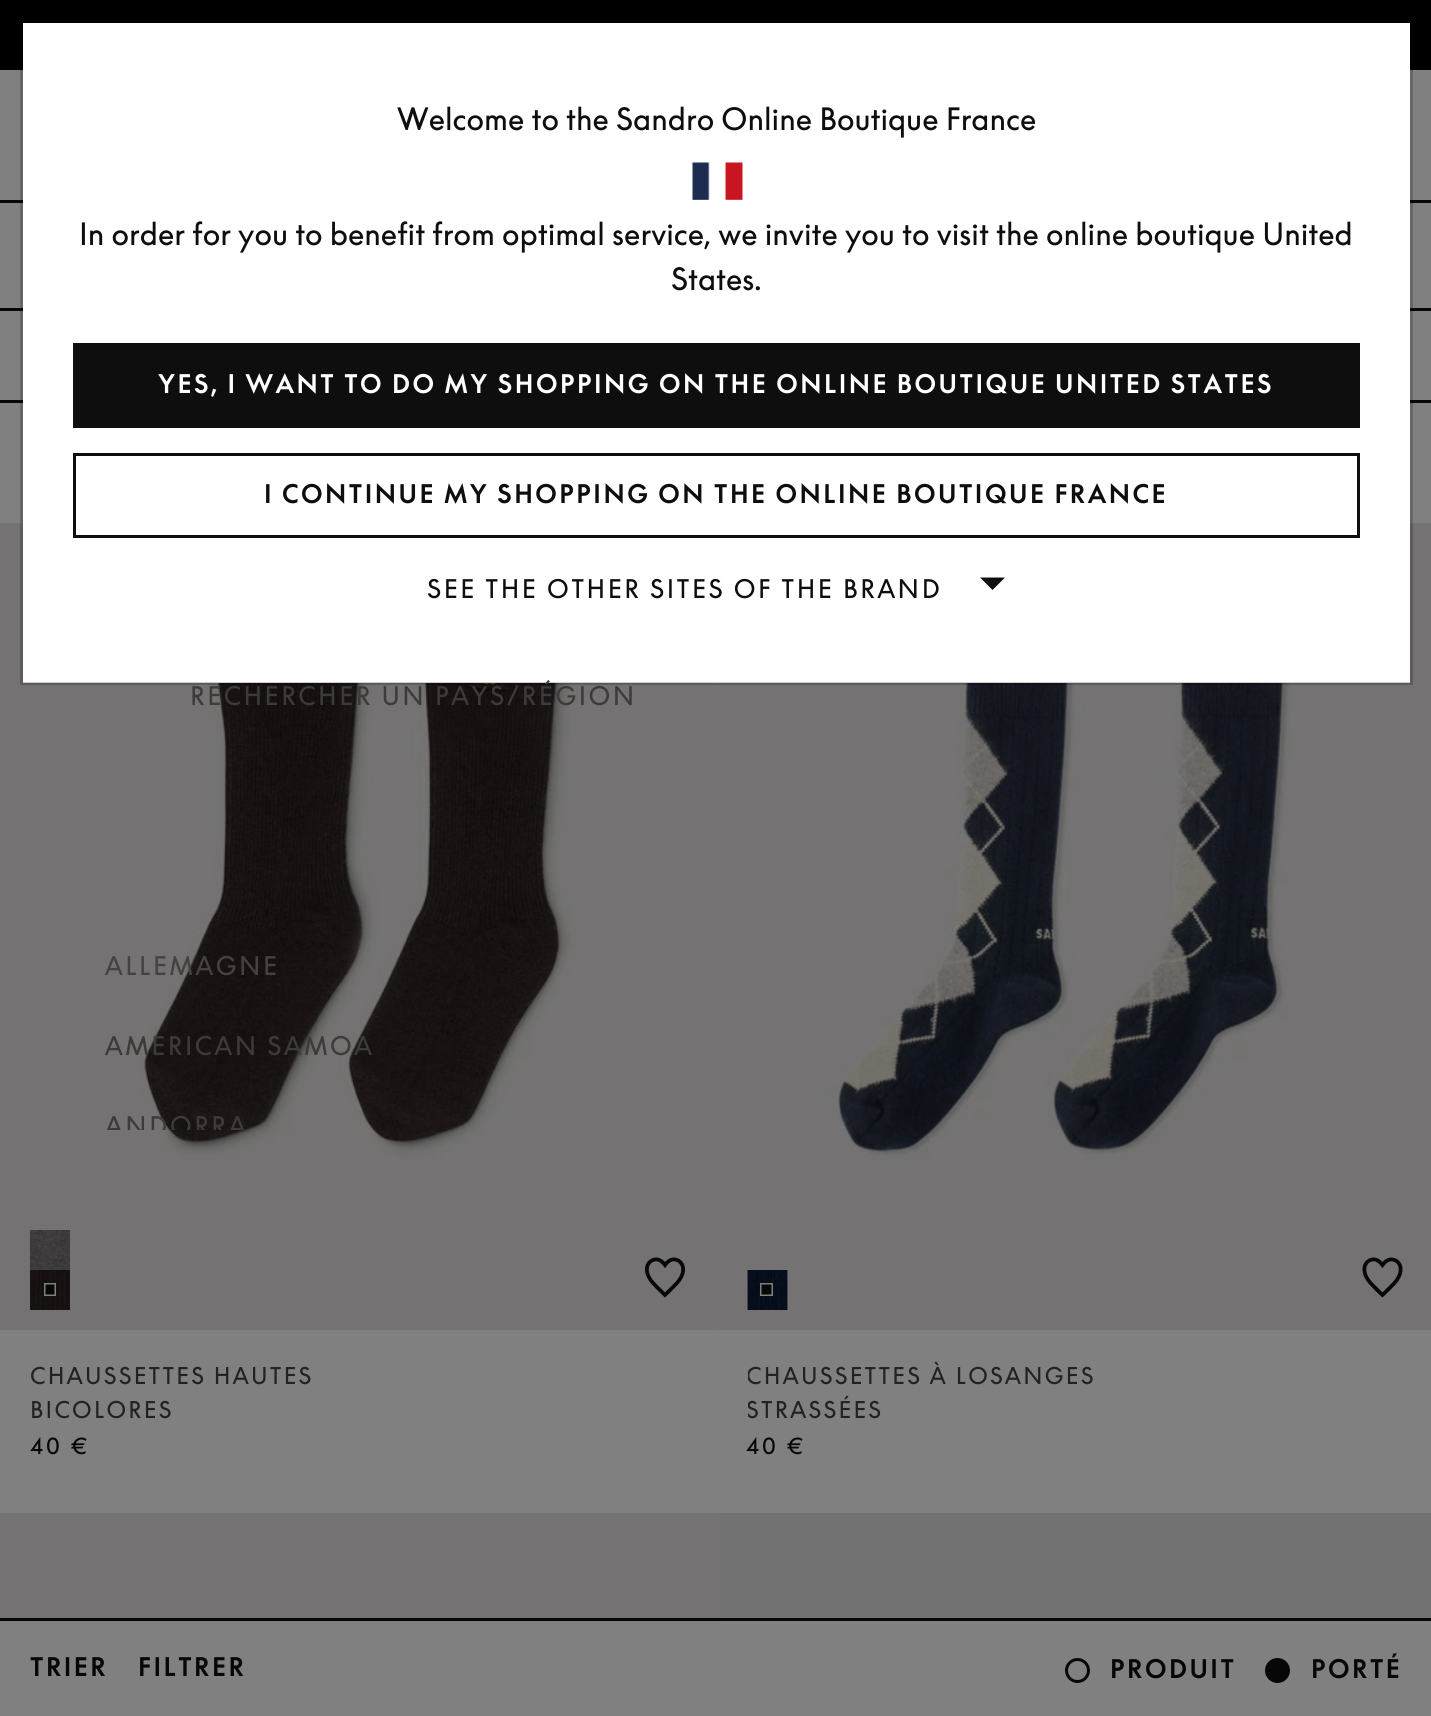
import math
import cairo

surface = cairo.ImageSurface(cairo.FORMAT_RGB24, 1431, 1716)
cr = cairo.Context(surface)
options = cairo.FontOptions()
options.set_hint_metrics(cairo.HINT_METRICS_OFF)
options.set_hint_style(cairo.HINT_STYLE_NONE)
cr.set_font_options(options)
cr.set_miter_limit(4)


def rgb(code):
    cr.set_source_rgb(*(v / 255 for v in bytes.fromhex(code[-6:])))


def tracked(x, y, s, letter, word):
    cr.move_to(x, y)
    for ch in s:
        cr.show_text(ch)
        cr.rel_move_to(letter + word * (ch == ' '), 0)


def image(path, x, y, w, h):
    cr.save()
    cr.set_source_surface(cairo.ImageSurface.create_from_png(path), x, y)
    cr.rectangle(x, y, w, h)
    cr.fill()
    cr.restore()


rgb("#808080")
cr.paint()
for x, y, w, h, color in [
    (0, 0, 1431, 70, "#000000"),
    (0, 200, 1431, 3, "#070707"),
    (0, 308, 1431, 3, "#070707"),
    (0, 400, 1431, 3, "#070707"),
]:
    rgb(color)
    cr.rectangle(x, y, w, h)
    cr.fill()
image("img/2.png", 0, 523, 718, 807)
image("img/6.png", 717, 523, 714, 807)
rgb("#ffffff")
cr.rectangle(23, 23, 1387, 660)
cr.fill()
cr.rectangle(21.5, 21.5, 1390, 662)
cr.set_source_rgba(0, 0, 0, 0.2)
cr.set_line_width(3)
cr.stroke()
image("img/1.png", 692, 162, 51, 38)
rgb("#0e0e0e")
cr.rectangle(73, 343, 1287, 85)
cr.fill()
cr.rectangle(74.5, 454.5, 1284, 82)
cr.stroke()
cr.new_path()
cr.move_to(980, 577.5)
cr.line_to(1005, 577.5)
cr.line_to(992.5, 590)
cr.close_path()
cr.fill()
image("img/3.png", 30, 1230, 40, 40)
image("img/4.png", 30, 1270, 40, 40)
rgb("#070707")
cr.rectangle(44.75, 1283.75, 10.5, 11.5)
cr.fill_preserve()
rgb("#808080")
cr.set_line_width(1.5)
cr.stroke()
image("img/5.png", 645, 1257, 40, 41)
image("img/7.png", 747, 1270, 41, 40)
image("img/8.png", 747, 1270, 41, 40)
rgb("#070707")
cr.rectangle(760.75, 1283.75, 11.5, 11.5)
cr.fill_preserve()
rgb("#808080")
cr.stroke()
image("img/9.png", 1362, 1257, 41, 41)
image("img/10.png", 0, 1513, 718, 105)
image("img/11.png", 717, 1513, 714, 105)
rgb("#070707")
cr.rectangle(0, 1618, 1431, 3)
cr.fill()
cr.arc(1077.5, 1670.5, 11, 0, 2 * math.pi)
cr.set_line_width(3)
cr.stroke()
cr.arc(1277.5, 1670.5, 11, 0, 2 * math.pi)
cr.fill_preserve()
cr.stroke()
cr.select_font_face("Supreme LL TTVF")
cr.set_font_size(30)
rgb("#0e0e0e")
for x, y, s in [
    (397, 130, "Welcome to the Sandro Online Boutique France"),
    (79, 245, "In order for you to benefit from optimal service, we invite you to visit the online boutique United"),
    (671, 290, "States."),
]:
    cr.move_to(x, y)
    cr.show_text(s)
cr.select_font_face("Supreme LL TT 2", cairo.FONT_SLANT_NORMAL, cairo.FONT_WEIGHT_BOLD)
cr.set_font_size(25)
rgb("#ffffff")
tracked(158, 393, "YES, I WANT TO DO MY SHOPPING ON THE ONLINE BOUTIQUE UNITED STATES", 2.5, 0)
rgb("#0e0e0e")
tracked(264, 503, "I CONTINUE MY SHOPPING ON THE ONLINE BOUTIQUE FRANCE", 2.5, 0)
cr.select_font_face("Supreme LL TTVF")
tracked(427, 598, "SEE THE OTHER SITES OF THE BRAND", 2.5, 0)
rgb("#3e3a39")
tracked(190, 705, "RECHERCHER UN PAYS/RÉGION", 2.5, 0)
rgb("#454241")
tracked(105, 975, "ALLEMAGNE", 2.5, 0)
rgb("#3e3a39")
tracked(105, 1055, "AMERICAN SAMOA", 2.5, 0)
cr.save()
cr.rectangle(75, 765, 1283, 365)
cr.clip()
tracked(105, 1135, "ANDORRA", 2.5, 0)
cr.restore()
cr.set_font_size(22.5)
rgb("#222222")
tracked(30, 1384, "CHAUSSETTES HAUTES", 2.25, 0)
tracked(30, 1418, "BICOLORES", 2.25, 0)
rgb("#070707")
tracked(30, 1454, "40 €", 2.25, 0)
cr.save()
cr.rectangle(748, 1360, 432, 68)
cr.clip()
rgb("#222222")
tracked(746, 1384, "CHAUSSETTES À LOSANGES", 2.25, 0)
tracked(746, 1418, "STRASSÉES", 2.25, 0)
cr.restore()
tracked(746, 1454, "40 €", 2.25, 0)
cr.select_font_face("Supreme LL TT 2", cairo.FONT_SLANT_NORMAL, cairo.FONT_WEIGHT_BOLD)
cr.set_font_size(25)
tracked(30, 1676, "TRIER", 2.5, 0)
tracked(138, 1676, "FILTRER", 2.5, 0)
cr.select_font_face("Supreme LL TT", cairo.FONT_SLANT_NORMAL, cairo.FONT_WEIGHT_BOLD)
tracked(1110, 1678, "PRODUIT", 2.5, 0)
tracked(1311, 1678, "PORTÉ", 2.5, 0)
surface.write_to_png("page.png")
